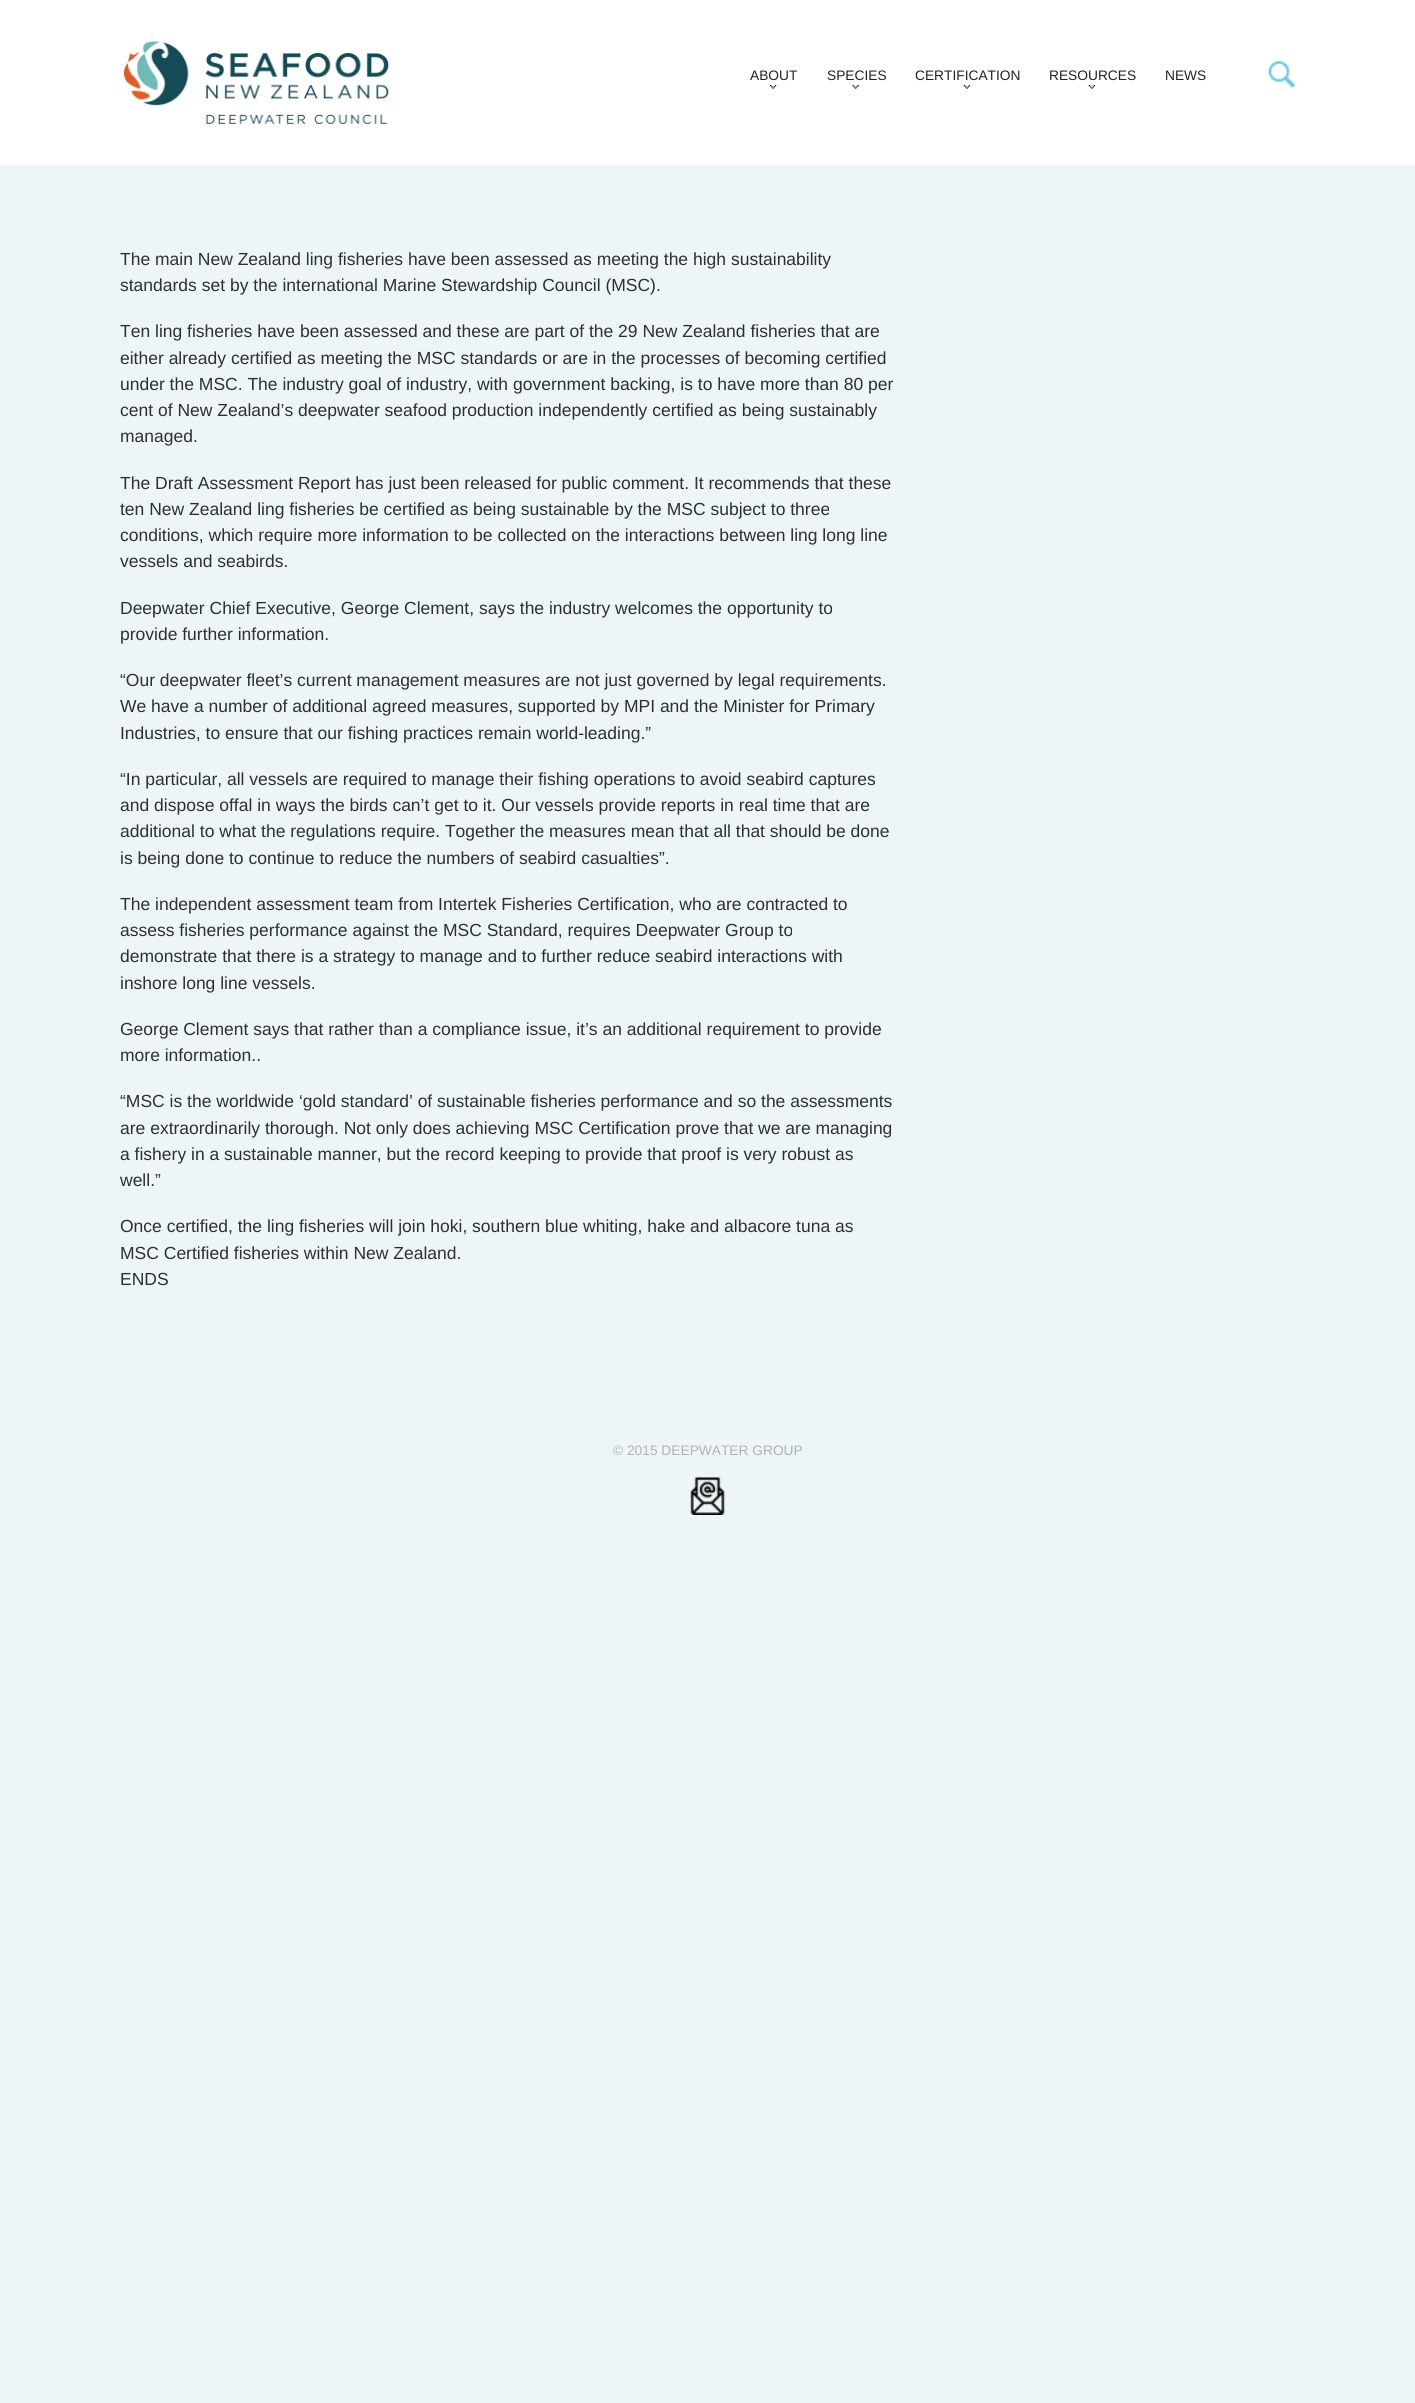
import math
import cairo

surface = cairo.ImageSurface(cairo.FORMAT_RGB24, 1415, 2403)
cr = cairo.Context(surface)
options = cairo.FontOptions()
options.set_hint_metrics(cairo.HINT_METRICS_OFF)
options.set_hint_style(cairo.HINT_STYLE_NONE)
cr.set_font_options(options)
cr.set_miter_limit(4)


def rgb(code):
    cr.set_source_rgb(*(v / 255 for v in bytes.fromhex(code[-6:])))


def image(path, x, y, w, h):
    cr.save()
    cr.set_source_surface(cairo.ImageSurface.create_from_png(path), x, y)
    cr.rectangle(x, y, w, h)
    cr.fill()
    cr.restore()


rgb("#eef5f6")
cr.paint()
rgb("#ffffff")
cr.rectangle(0, 0, 1415, 165)
cr.fill()
image("img/1.png", 124, 41, 265, 83)
image("img/2.png", 770, 85, 7, 4)
image("img/3.png", 852, 85, 7, 4)
image("img/4.png", 963, 85, 7, 4)
image("img/4.png", 1088, 85, 7, 4)
image("img/5.png", 1268, 61, 27, 27)
image("img/6.png", 690, 1477, 36, 38)
cr.select_font_face("Liberation Sans")
cr.set_font_size(13.75)
rgb("#222222")
for x, y, s in [
    (750, 80, "ABOUT"),
    (827, 80, "SPECIES"),
    (915, 80, "CERTIFICATION"),
    (1049, 80, "RESOURCES"),
    (1165, 80, "NEWS"),
]:
    cr.move_to(x, y)
    cr.show_text(s)
cr.set_font_size(17.5)
rgb("#2f2f2f")
for x, y, s in [
    (120, 265, "The main New Zealand ling fisheries have been assessed as meeting the high sustainability"),
    (120, 291, "standards set by the international Marine Stewardship Council (MSC)."),
    (120, 337, "Ten ling fisheries have been assessed and these are part of the 29 New Zealand fisheries that are"),
    (120, 364, "either already certified as meeting the MSC standards or are in the processes of becoming certified"),
    (120, 390, "under the MSC. The industry goal of industry, with government backing, is to have more than 80 per"),
    (120, 416, "cent of New Zealand’s deepwater seafood production independently certified as being sustainably"),
    (120, 442, "managed."),
    (120, 489, "The Draft Assessment Report has just been released for public comment. It recommends that these"),
    (120, 515, "ten New Zealand ling fisheries be certified as being sustainable by the MSC subject to three"),
    (120, 541, "conditions, which require more information to be collected on the interactions between ling long line"),
    (120, 567, "vessels and seabirds."),
    (120, 614, "Deepwater Chief Executive, George Clement, says the industry welcomes the opportunity to"),
    (120, 640, "provide further information."),
    (120, 686, "“Our deepwater fleet’s current management measures are not just governed by legal requirements."),
    (120, 712, "We have a number of additional agreed measures, supported by MPI and the Minister for Primary"),
    (120, 739, "Industries, to ensure that our fishing practices remain world-leading.”"),
    (120, 785, "“In particular, all vessels are required to manage their fishing operations to avoid seabird captures"),
    (120, 811, "and dispose offal in ways the birds can’t get to it. Our vessels provide reports in real time that are"),
    (120, 837, "additional to what the regulations require. Together the measures mean that all that should be done"),
    (120, 864, "is being done to continue to reduce the numbers of seabird casualties”."),
    (120, 910, "The independent assessment team from Intertek Fisheries Certification, who are contracted to"),
    (120, 936, "assess fisheries performance against the MSC Standard, requires Deepwater Group to"),
    (120, 962, "demonstrate that there is a strategy to manage and to further reduce seabird interactions with"),
    (120, 989, "inshore long line vessels."),
    (120, 1035, "George Clement says that rather than a compliance issue, it’s an additional requirement to provide"),
    (120, 1061, "more information.."),
    (120, 1107, "“MSC is the worldwide ‘gold standard’ of sustainable fisheries performance and so the assessments"),
    (120, 1134, "are extraordinarily thorough. Not only does achieving MSC Certification prove that we are managing"),
    (120, 1160, "a fishery in a sustainable manner, but the record keeping to provide that proof is very robust as"),
    (120, 1186, "well.”"),
    (120, 1232, "Once certified, the ling fisheries will join hoki, southern blue whiting, hake and albacore tuna as"),
    (120, 1259, "MSC Certified fisheries within New Zealand."),
    (120, 1285, "ENDS"),
]:
    cr.move_to(x, y)
    cr.show_text(s)
cr.set_font_size(13.75)
rgb("#b2b2b2")
cr.move_to(613, 1455)
cr.show_text("© 2015 DEEPWATER GROUP")
surface.write_to_png("page.png")
